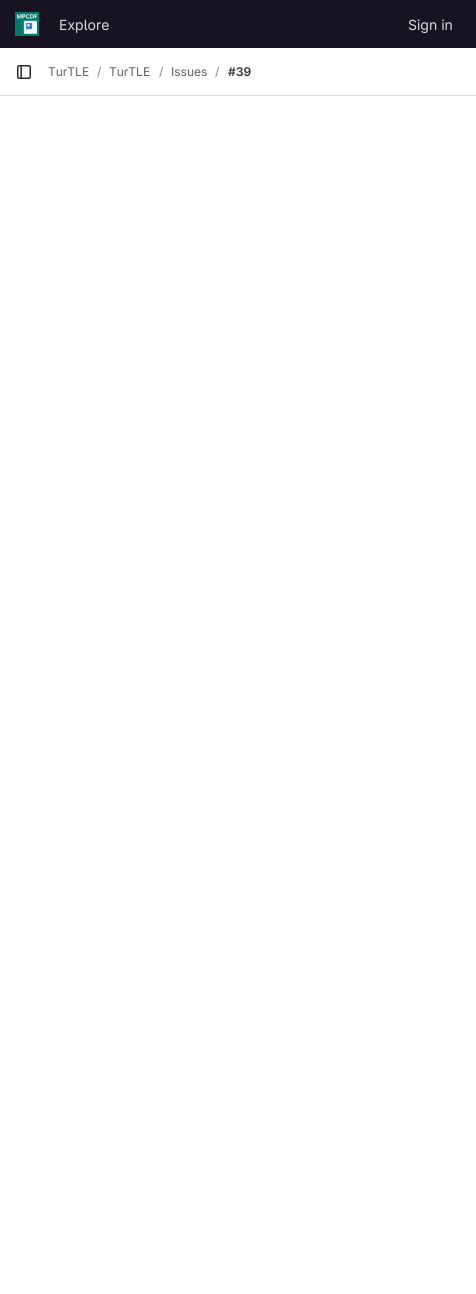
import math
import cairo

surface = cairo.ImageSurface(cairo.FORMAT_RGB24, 476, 1294)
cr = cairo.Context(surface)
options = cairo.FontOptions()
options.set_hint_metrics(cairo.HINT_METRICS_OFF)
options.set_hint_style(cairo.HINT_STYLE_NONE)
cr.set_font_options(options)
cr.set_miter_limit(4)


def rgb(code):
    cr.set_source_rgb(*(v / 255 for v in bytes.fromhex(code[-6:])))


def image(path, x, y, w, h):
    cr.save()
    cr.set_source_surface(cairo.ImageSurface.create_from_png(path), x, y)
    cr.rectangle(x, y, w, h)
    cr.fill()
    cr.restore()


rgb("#ffffff")
cr.paint()
rgb("#171321")
cr.rectangle(0, 0, 476, 48)
cr.fill()
image("img/1.png", 15, 12, 24, 24)
rgb("#dcdcde")
cr.rectangle(0, 95, 476, 1)
cr.fill()
image("img/2.png", 17, 65, 14, 14)
cr.select_font_face("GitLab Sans")
cr.set_font_size(14)
cr.move_to(59, 30)
cr.show_text("Explore")
cr.move_to(408, 30)
cr.show_text("Sign in")
cr.set_font_size(12)
rgb("#626168")
cr.move_to(48, 76)
cr.show_text("TurTLE")
rgb("#89888d")
cr.move_to(97, 76)
cr.show_text("/")
rgb("#626168")
cr.move_to(109, 76)
cr.show_text("TurTLE")
rgb("#89888d")
cr.move_to(159, 76)
cr.show_text("/")
rgb("#626168")
cr.move_to(171, 76)
cr.show_text("Issues")
rgb("#89888d")
cr.move_to(215, 76)
cr.show_text("/")
cr.select_font_face("GitLab Sans SemiBold")
rgb("#3a383f")
cr.move_to(228, 76)
cr.show_text("#39")
surface.write_to_png("page.png")
